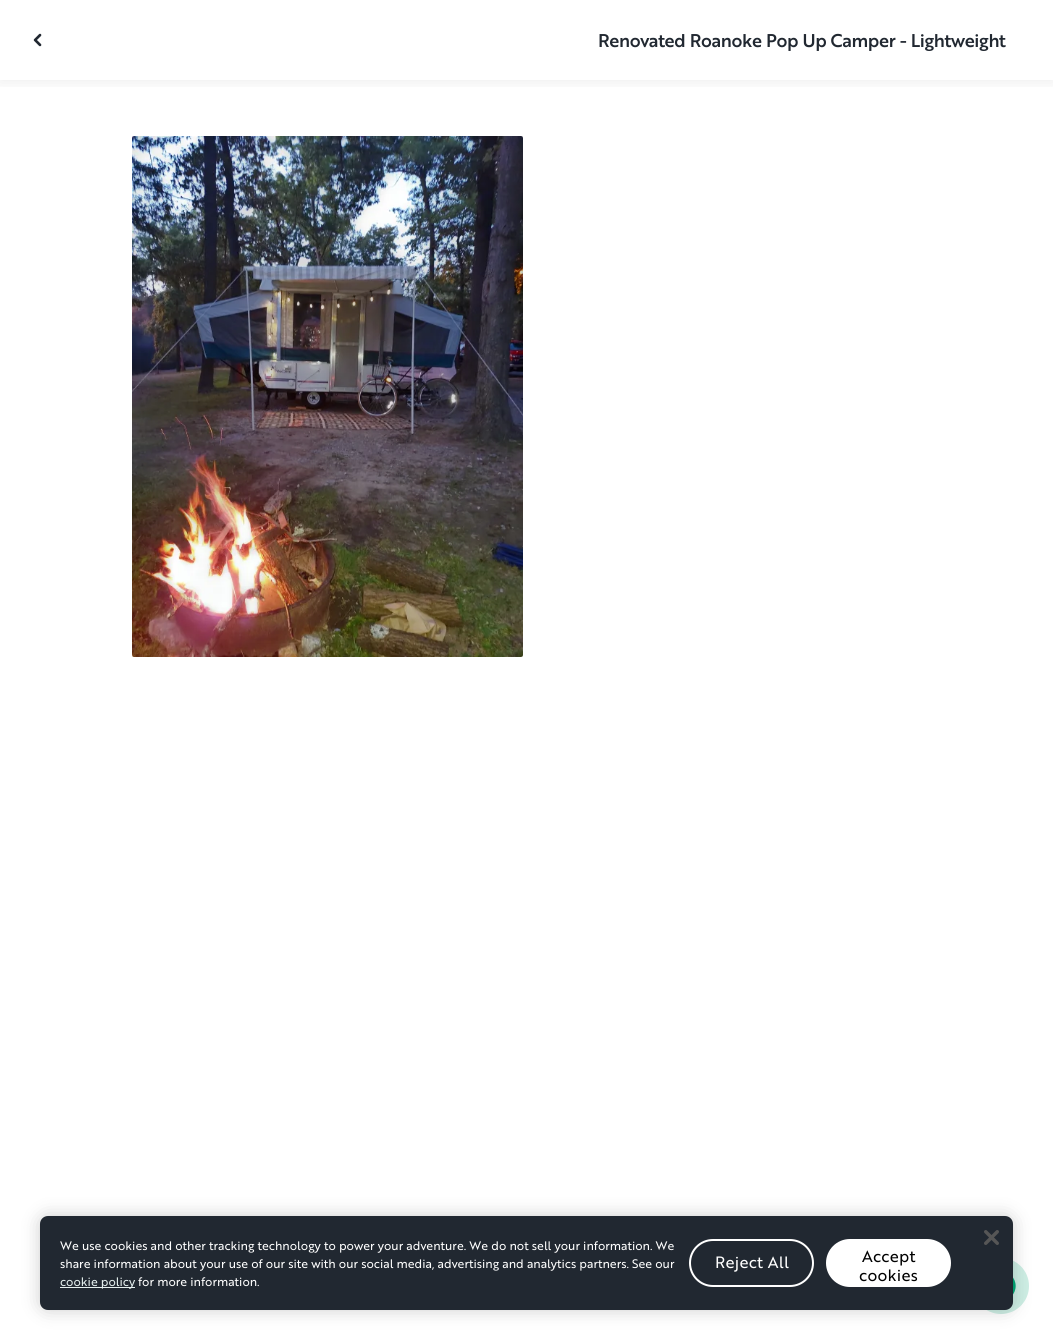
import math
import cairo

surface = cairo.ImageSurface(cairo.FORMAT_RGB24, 1053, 1338)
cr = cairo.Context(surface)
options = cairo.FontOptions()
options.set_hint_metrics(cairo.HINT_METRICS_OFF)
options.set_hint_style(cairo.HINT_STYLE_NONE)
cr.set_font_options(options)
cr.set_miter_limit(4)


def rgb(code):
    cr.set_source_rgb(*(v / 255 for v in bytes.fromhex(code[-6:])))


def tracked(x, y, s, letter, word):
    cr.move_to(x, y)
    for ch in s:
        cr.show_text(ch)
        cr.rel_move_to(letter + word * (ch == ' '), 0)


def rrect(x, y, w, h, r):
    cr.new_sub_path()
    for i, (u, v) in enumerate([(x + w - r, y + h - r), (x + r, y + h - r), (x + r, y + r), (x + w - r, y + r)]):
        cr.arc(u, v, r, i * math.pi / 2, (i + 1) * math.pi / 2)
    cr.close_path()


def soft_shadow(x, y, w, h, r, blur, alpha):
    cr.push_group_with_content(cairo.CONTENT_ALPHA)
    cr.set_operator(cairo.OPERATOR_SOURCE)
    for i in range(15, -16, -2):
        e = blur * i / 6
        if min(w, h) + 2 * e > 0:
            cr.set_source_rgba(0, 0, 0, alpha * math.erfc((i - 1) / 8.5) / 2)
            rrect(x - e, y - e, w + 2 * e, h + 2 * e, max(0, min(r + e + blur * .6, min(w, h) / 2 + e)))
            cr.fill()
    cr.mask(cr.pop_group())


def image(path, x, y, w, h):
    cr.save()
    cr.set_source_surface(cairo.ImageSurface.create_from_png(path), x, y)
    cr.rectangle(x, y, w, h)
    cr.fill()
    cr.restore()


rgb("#ffffff")
cr.paint()
cr.save()
cr.rectangle(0, 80, 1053, 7)
cr.clip()
rgb("#0f0f0f")
soft_shadow(0, 0, 1053, 80, 0, 8, 0.1)
cr.restore()
image("img/1.png", 33, 33, 9, 14)
image("img/2.png", 132, 136, 391, 521)
rgb("#cdeee4")
cr.arc(1001, 1286, 28, 0, 2 * math.pi)
cr.fill()
image("img/3.png", 1013, 1277, 3, 18)
rgb("#000000")
soft_shadow(40, 1216, 973, 94, 8, 9, 0.2)
rgb("#212831")
rrect(40, 1216, 973, 94, 8)
cr.fill()
image("img/4.png", 984, 1230, 15, 15)
rgb("#e6f0ef")
cr.rectangle(60, 1287, 75, 1)
cr.fill()
rrect(690, 1240, 123, 46, 23)
rgb("#ffffff")
cr.stroke()
rrect(826, 1239, 125, 48, 24)
cr.fill()
cr.select_font_face("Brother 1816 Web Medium")
cr.set_font_size(18)
rgb("#212831")
tracked(598, 47, "Renovated Roanoke Pop Up Camper - Lightweight", -0.35, 0)
cr.select_font_face("Brother 1816 Web")
cr.set_font_size(12)
rgb("#ffffff")
cr.move_to(60, 1250)
cr.show_text("We use cookies and other tracking technology to power your adventure. We do not sell your information. We")
cr.move_to(60, 1268)
cr.show_text("share information about your use of our site with our social media, advertising and analytics partners. See our")
rgb("#e6f0ef")
cr.move_to(60, 1286)
cr.show_text("cookie policy")
rgb("#ffffff")
cr.move_to(138, 1286)
cr.show_text("for more information.")
cr.set_font_size(16)
tracked(715, 1268, "Reject All", 0.25, 0)
rgb("#000000")
tracked(862, 1262, "Accept", 0.25, 0)
tracked(859, 1281, "cookies", 0.25, 0)
surface.write_to_png("page.png")
